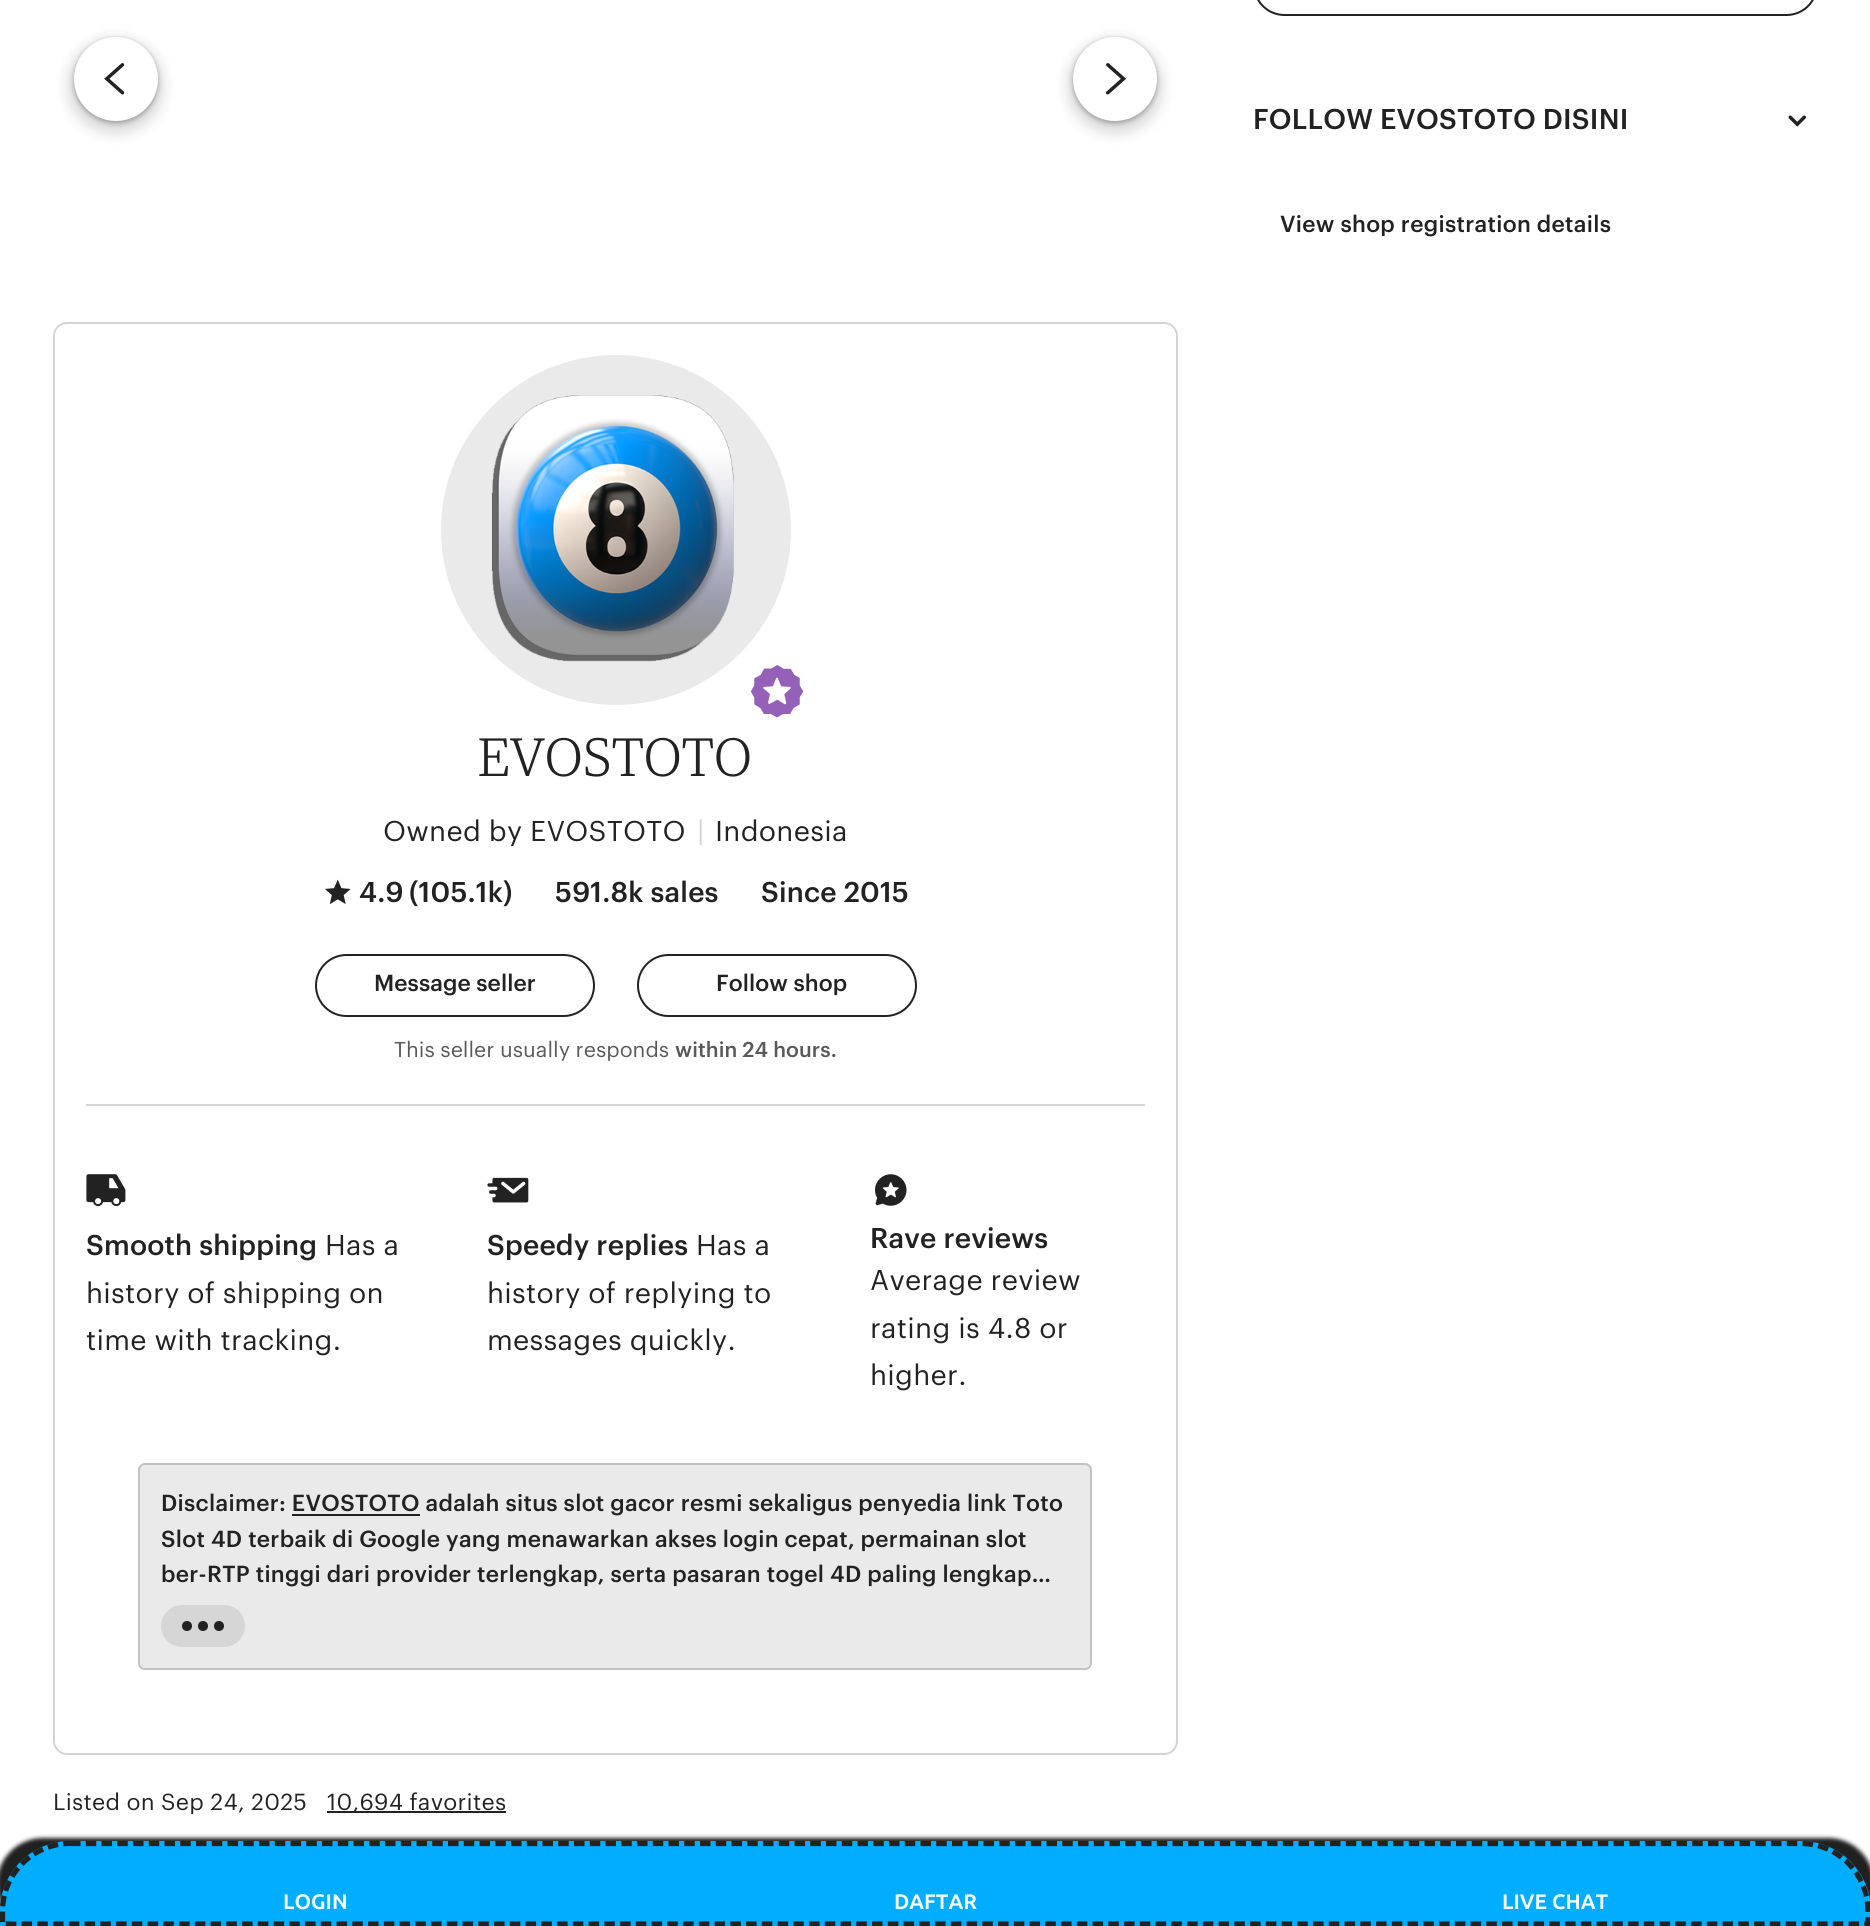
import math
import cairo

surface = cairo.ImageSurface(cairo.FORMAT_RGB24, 1870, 1926)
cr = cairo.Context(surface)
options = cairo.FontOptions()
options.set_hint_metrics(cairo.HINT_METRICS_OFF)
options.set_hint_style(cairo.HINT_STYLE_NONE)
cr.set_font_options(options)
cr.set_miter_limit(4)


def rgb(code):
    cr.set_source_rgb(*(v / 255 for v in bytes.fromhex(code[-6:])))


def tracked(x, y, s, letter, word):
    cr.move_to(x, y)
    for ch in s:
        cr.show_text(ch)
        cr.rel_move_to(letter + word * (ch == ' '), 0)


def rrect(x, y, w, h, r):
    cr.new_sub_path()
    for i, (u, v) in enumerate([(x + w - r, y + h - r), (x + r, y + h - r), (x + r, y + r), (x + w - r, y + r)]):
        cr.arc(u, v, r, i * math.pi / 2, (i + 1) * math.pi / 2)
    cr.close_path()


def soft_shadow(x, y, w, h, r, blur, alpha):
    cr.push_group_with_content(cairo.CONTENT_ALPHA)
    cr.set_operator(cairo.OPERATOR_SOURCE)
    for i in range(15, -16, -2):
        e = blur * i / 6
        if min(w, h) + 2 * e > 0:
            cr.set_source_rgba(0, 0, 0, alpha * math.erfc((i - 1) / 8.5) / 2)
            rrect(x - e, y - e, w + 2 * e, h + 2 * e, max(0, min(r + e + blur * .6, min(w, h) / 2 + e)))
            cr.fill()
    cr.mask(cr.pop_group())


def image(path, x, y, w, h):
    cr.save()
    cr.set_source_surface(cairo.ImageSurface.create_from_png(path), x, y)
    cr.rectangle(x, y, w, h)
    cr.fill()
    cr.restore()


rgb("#ffffff")
cr.paint()
rrect(1254, -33, 563, 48, 30.5)
rgb("#222222")
cr.stroke()
image("img/1.png", 1788, 115, 18, 12)
rgb("#000000")
soft_shadow(68, 39, 95, 94, 47, 7, 0.15)
soft_shadow(74, 39, 84, 84, 42, 2.5, 0.3)
rgb("#ffffff")
cr.arc(116, 79, 42, 0, 2 * math.pi)
cr.fill()
image("img/2.png", 104, 63, 21, 32)
rgb("#000000")
soft_shadow(1068, 39, 94, 94, 47, 7, 0.15)
soft_shadow(1073, 39, 84, 84, 42, 2.5, 0.3)
rgb("#ffffff")
cr.arc(1115, 79, 42, 0, 2 * math.pi)
cr.fill()
image("img/3.png", 1106, 63, 20, 32)
rrect(54, 323, 1123, 1431, 13)
rgb("#d4d4d4")
cr.stroke()
rgb("#eaeaea")
cr.arc(616, 530, 175, 0, 2 * math.pi)
cr.fill()
image("img/4.png", 492, 395, 242, 267)
image("img/5.png", 750, 665, 54, 53)
image("img/6.png", 325, 879, 26, 25)
rrect(316, 955, 278, 61, 30.5)
rgb("#222222")
cr.stroke()
rrect(638, 955, 278, 61, 30.5)
cr.stroke()
rgb("#d4d4d4")
cr.rectangle(86, 1104, 1059, 2)
cr.fill()
image("img/7.png", 86, 1174, 40, 33)
image("img/8.png", 487, 1177, 42, 26)
image("img/9.png", 875, 1174, 32, 32)
rgb("#eaeaea")
rrect(138, 1463, 954, 207, 7)
cr.fill()
rrect(139, 1464, 952, 205, 6)
cr.set_source_rgba(0.055, 0.055, 0.055, 0.18)
cr.stroke()
rgb("#222222")
cr.rectangle(292, 1514, 128, 2)
cr.fill()
rgb("#d6d6d6")
rrect(161, 1605, 84, 42, 21)
cr.fill()
rgb("#222222")
cr.arc(203, 1626, 5, 0, 2 * math.pi)
cr.fill()
cr.arc(187, 1626, 5, 0, 2 * math.pi)
cr.fill()
cr.arc(219, 1626, 5, 0, 2 * math.pi)
cr.fill()
cr.rectangle(327, 1811, 179, 2)
cr.fill()
rgb("#202020")
soft_shadow(-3, 1838, 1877, 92, 74, 2, 1)
rgb("#00adff")
cr.new_path()
cr.move_to(70, 1841)
cr.line_to(1801, 1841)
cr.curve_to(1839.5, 1841, 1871, 1872.5, 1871, 1911)
cr.line_to(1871, 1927)
cr.line_to(0, 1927)
cr.line_to(0, 1911)
cr.curve_to(0, 1872.5, 31.5, 1841, 70, 1841)
cr.close_path()
cr.fill()
cr.new_path()
cr.move_to(70, 1843.5)
cr.line_to(1801, 1843.5)
cr.curve_to(1838, 1843.5, 1868, 1874, 1868, 1911)
cr.line_to(1868, 1924)
cr.line_to(2.5, 1924)
cr.line_to(2.5, 1911)
cr.curve_to(2.5, 1874, 33, 1843.5, 70, 1843.5)
cr.close_path()
rgb("#222222")
cr.set_line_width(5.2)
cr.set_dash([10.5, 5.25])
cr.stroke()
cr.select_font_face("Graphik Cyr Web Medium")
cr.set_font_size(28)
tracked(1253, 129, "FOLLOW EVOSTOTO DISINI", 0.1, 0)
cr.set_font_size(22.75)
tracked(1280, 232, "View shop registration details", 0.23, 0)
cr.select_font_face("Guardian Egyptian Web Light")
cr.set_font_size(54.25)
tracked(478, 776, "EVOSTOTO", 0.75, 0)
cr.select_font_face("Graphik Cyr Web")
cr.set_font_size(28)
tracked(383, 841, "Owned by EVOSTOTO", 0.25, 0)
rgb("#d4d4d4")
cr.move_to(697, 841)
cr.show_text("|")
rgb("#222222")
tracked(715, 841, "Indonesia", 0.25, 0)
cr.select_font_face("Graphik Cyr Web Medium")
for x, y, s in [
    (359, 902, "4.9"),
    (409, 902, "(105.1k)"),
    (555, 902, "591.8k sales"),
    (761, 902, "Since 2015"),
]:
    tracked(x, y, s, 0.1, 0)
cr.set_font_size(22.75)
cr.move_to(374, 991)
cr.show_text("Message seller")
cr.move_to(716, 991)
cr.show_text("Follow shop")
cr.select_font_face("Graphik Cyr Web")
cr.set_font_size(21)
rgb("#595959")
cr.move_to(394, 1057)
cr.show_text("This seller usually responds")
cr.select_font_face("Graphik Cyr Web Medium")
cr.move_to(675, 1057)
cr.show_text("within 24 hours.")
cr.set_font_size(28)
rgb("#222222")
tracked(86, 1255, "Smooth shipping", 0.1, 0)
cr.select_font_face("Graphik Cyr Web")
for x, y, s in [
    (325, 1255, "Has a"),
    (86, 1303, "history of shipping on"),
    (86, 1350, "time with tracking."),
]:
    tracked(x, y, s, 0.25, 0)
cr.select_font_face("Graphik Cyr Web Medium")
tracked(487, 1255, "Speedy replies", 0.1, 0)
cr.select_font_face("Graphik Cyr Web")
for x, y, s in [
    (696, 1255, "Has a"),
    (487, 1303, "history of replying to"),
    (487, 1350, "messages quickly."),
]:
    tracked(x, y, s, 0.25, 0)
cr.select_font_face("Graphik Cyr Web Medium")
tracked(870, 1248, "Rave reviews", 0.1, 0)
cr.select_font_face("Graphik Cyr Web")
for x, y, s in [
    (870, 1290, "Average review"),
    (870, 1338, "rating is 4.8 or"),
    (870, 1385, "higher."),
]:
    tracked(x, y, s, 0.25, 0)
cr.select_font_face("Graphik Cyr Web Medium")
cr.set_font_size(22.75)
for x, y, s in [
    (161, 1511, "Disclaimer: EVOSTOTO adalah situs slot gacor resmi sekaligus penyedia link Toto"),
    (161, 1547, "Slot 4D terbaik di Google yang menawarkan akses login cepat, permainan slot"),
    (161, 1582, "ber-RTP tinggi dari provider terlengkap, serta pasaran togel 4D paling lengkap…"),
]:
    tracked(x, y, s, 0.23, 0)
cr.select_font_face("Graphik Cyr Web")
tracked(53, 1810, "Listed on Sep 24, 2025", 0.23, 0)
tracked(327, 1810, "10,694 favorites", 0.23, 0)
cr.select_font_face("Ubuntu", cairo.FONT_SLANT_NORMAL, cairo.FONT_WEIGHT_BOLD)
cr.set_font_size(21)
rgb("#fcfbfb")
for x, y, s in [
    (283, 1909, "LOGIN"),
    (894, 1909, "DAFTAR"),
    (1502, 1909, "LIVE CHAT"),
]:
    cr.move_to(x, y)
    cr.show_text(s)
surface.write_to_png("page.png")
